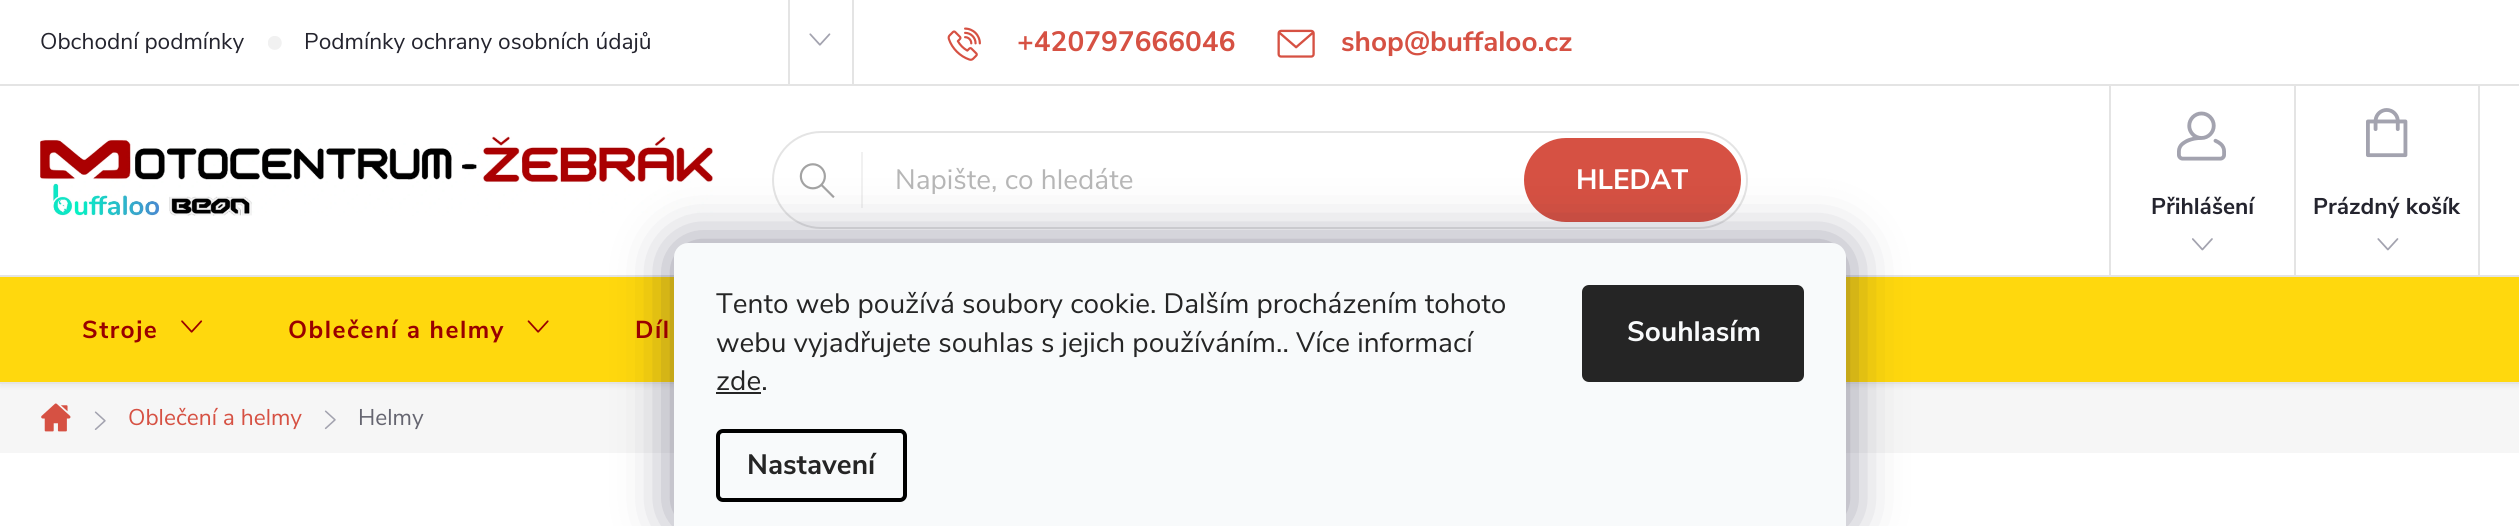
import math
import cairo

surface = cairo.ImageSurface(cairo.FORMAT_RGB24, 2519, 526)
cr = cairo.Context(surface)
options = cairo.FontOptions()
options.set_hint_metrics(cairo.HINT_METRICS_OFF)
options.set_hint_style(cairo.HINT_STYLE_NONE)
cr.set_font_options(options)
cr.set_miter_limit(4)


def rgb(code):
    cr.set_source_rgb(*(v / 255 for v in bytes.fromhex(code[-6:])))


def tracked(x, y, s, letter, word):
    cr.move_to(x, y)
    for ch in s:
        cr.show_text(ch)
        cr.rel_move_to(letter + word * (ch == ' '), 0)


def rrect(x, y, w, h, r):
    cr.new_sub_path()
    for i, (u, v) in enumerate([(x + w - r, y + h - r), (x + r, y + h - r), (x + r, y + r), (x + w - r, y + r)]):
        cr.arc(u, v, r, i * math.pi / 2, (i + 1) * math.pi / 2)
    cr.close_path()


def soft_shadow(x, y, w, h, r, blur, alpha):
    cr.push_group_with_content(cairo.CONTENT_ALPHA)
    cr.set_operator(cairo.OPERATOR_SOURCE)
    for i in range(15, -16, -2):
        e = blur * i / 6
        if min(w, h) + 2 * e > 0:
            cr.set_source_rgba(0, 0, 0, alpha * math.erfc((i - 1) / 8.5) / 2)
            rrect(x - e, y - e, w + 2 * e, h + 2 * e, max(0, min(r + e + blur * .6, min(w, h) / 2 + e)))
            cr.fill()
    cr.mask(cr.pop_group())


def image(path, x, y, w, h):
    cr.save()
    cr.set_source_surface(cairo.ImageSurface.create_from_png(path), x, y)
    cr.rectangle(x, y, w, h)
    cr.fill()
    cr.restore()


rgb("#ffffff")
cr.paint()
rgb("#e4e4e4")
cr.rectangle(0, 84, 2519, 2)
cr.fill()
image("img/1.png", 268, 36, 14, 14)
cr.rectangle(852, 0, 2, 84)
cr.fill()
cr.rectangle(788, 0, 2, 84)
cr.fill()
image("img/2.png", 809, 33, 22, 13)
image("img/3.png", 947, 27, 34, 34)
image("img/4.png", 1277, 29, 38, 29)
image("img/5.png", 40, 136, 673, 80)
rrect(773, 132, 974, 96, 48)
cr.stroke()
rgb("#f1f1f1")
cr.rectangle(861, 152, 2, 56)
cr.fill()
image("img/6.png", 799, 163, 36, 35)
rgb("#d65143")
rrect(1525, 139, 215, 82, 41)
cr.fill_preserve()
cr.stroke()
rgb("#e4e4e4")
cr.rectangle(2109, 86, 2, 189)
cr.fill()
image("img/7.png", 2177, 111, 49, 50)
image("img/8.png", 2192, 238, 21, 13)
cr.rectangle(2478, 86, 2, 189)
cr.fill()
cr.rectangle(2294, 86, 2, 189)
cr.fill()
image("img/9.png", 2366, 108, 42, 50)
image("img/10.png", 2377, 238, 22, 13)
rgb("#f6f6f6")
cr.rectangle(0, 384, 2519, 69)
cr.fill()
rgb("#000000")
soft_shadow(0, 278, 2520, 109, 0, 2, 0.05)
rgb("#ffd80d")
cr.rectangle(0, 277, 2519, 105)
cr.fill()
image("img/11.png", 181, 320, 22, 13)
image("img/12.png", 527, 320, 22, 13)
rgb("#e4e4e4")
cr.rectangle(0, 275, 2519, 2)
cr.fill()
cr.rectangle(0, 382, 2519, 2)
cr.fill()
image("img/13.png", 41, 403, 30, 29)
image("img/14.png", 94, 411, 12, 19)
image("img/15.png", 324, 410, 12, 20)
rgb("#1b1939")
soft_shadow(674, 243, 1172, 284, 14, 26, 0.5)
rgb("#f8fafb")
cr.new_path()
cr.move_to(688, 243)
cr.line_to(1832, 243)
cr.curve_to(1839.5, 243, 1846, 249.5, 1846, 257)
cr.line_to(1846, 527)
cr.line_to(674, 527)
cr.line_to(674, 257)
cr.curve_to(674, 249.5, 680.5, 243, 688, 243)
cr.close_path()
cr.fill()
rgb("#252525")
cr.rectangle(716, 392, 45, 2)
cr.fill()
rrect(718, 431, 187, 69, 5)
rgb("#000000")
cr.set_line_width(4)
cr.stroke()
rgb("#252525")
rrect(1582, 285, 222, 97, 7)
cr.fill()
cr.select_font_face("Nunito Sans")
cr.set_font_size(22.75)
rgb("#24242e")
cr.move_to(40, 49)
cr.show_text("Obchodní podmínky")
cr.move_to(304, 49)
cr.show_text("Podmínky ochrany osobních údajů")
cr.select_font_face("Nunito Sans", cairo.FONT_SLANT_NORMAL, cairo.FONT_WEIGHT_BOLD)
cr.set_font_size(28)
rgb("#d65143")
cr.move_to(1017, 51)
cr.show_text("+420797666046")
cr.move_to(1341, 51)
cr.show_text("shop@buffaloo.cz")
cr.select_font_face("Nunito Sans")
rgb("#b6b6b6")
cr.move_to(895, 189)
cr.show_text("Napište, co hledáte")
cr.select_font_face("Nunito Sans", cairo.FONT_SLANT_NORMAL, cairo.FONT_WEIGHT_BOLD)
rgb("#ffffff")
cr.move_to(1576, 189)
cr.show_text("HLEDAT")
cr.set_font_size(22.75)
rgb("#24242e")
cr.move_to(2151, 214)
cr.show_text("Přihlášení")
cr.move_to(2313, 214)
cr.show_text("Prázdný košík")
cr.set_font_size(24.5)
rgb("#990000")
for x, y, s in [
    (82, 338, "Stroje"),
    (288, 338, "Oblečení a helmy"),
    (635, 338, "Díl"),
]:
    tracked(x, y, s, 1.5, 0)
cr.select_font_face("Nunito Sans")
cr.set_font_size(22.75)
rgb("#d65143")
cr.move_to(128, 425)
cr.show_text("Oblečení a helmy")
rgb("#656570")
cr.move_to(358, 425)
cr.show_text("Helmy")
cr.set_font_size(28)
rgb("#252525")
for x, y, s in [
    (716, 313, "Tento web používá soubory cookie. Dalším procházením tohoto"),
    (716, 352, "webu vyjadřujete souhlas s jejich používáním.. Více informací"),
    (716, 390, "zde."),
]:
    cr.move_to(x, y)
    cr.show_text(s)
cr.select_font_face("Nunito Sans", cairo.FONT_SLANT_NORMAL, cairo.FONT_WEIGHT_BOLD)
cr.move_to(747, 474)
cr.show_text("Nastavení")
rgb("#f8fafb")
cr.move_to(1627, 341)
cr.show_text("Souhlasím")
surface.write_to_png("page.png")
